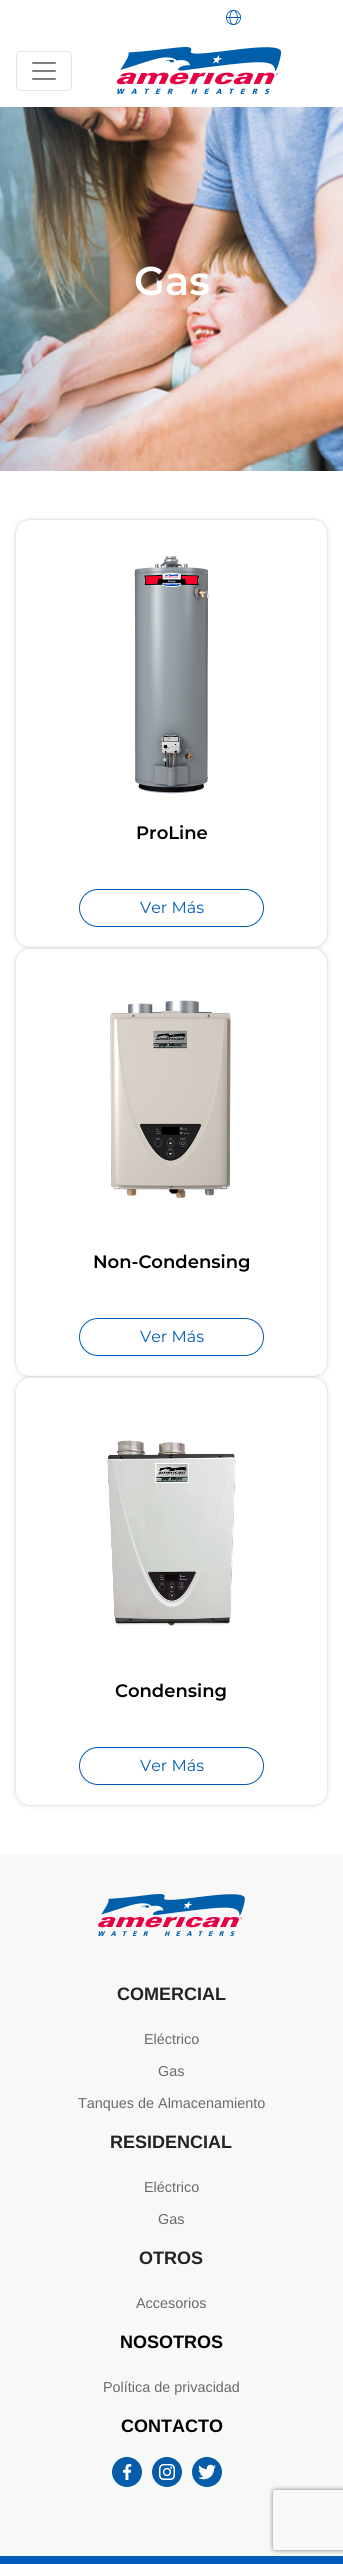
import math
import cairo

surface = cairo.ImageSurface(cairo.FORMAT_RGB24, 343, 2564)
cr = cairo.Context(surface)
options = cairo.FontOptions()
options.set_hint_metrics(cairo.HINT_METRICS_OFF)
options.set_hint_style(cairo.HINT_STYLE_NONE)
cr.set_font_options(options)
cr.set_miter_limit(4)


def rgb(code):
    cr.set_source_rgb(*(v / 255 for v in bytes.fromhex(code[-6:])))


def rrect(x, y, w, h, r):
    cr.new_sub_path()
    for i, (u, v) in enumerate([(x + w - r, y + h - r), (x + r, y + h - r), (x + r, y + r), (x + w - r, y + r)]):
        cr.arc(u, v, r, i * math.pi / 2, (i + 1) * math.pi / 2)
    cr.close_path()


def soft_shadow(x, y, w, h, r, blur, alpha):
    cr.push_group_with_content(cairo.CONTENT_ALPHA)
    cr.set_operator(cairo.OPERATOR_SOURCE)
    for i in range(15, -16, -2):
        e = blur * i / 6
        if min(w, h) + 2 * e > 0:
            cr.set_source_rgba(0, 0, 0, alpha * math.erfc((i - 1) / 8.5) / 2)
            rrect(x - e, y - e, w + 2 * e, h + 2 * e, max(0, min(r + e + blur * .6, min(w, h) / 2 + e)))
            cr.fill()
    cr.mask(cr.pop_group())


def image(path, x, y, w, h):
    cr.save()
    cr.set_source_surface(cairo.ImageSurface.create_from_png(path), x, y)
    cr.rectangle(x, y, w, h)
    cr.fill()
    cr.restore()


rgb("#ffffff")
cr.paint()
image("img/1.png", 226, 10, 15, 15)
rrect(16.5, 51.5, 55, 39, 3.5)
rgb("#e6e6e6")
cr.set_line_width(1)
cr.stroke()
image("img/2.png", 32, 62, 24, 18)
image("img/3.png", 116, 47, 166, 47)
image("img/4.png", 0, 107, 343, 364)
rgb("#000000")
soft_shadow(15, 519, 313, 429, 15, 2.5, 0.1)
rgb("#ffffff")
rrect(15, 519, 313, 429, 15)
cr.fill()
rrect(15.5, 519.5, 312, 428, 14.5)
cr.set_source_rgba(0, 0, 0, 0.09)
cr.stroke()
image("img/5.png", 134, 556, 75, 238)
rrect(79.5, 889.5, 184, 37, 18.5)
rgb("#005cb8")
cr.stroke()
rgb("#000000")
soft_shadow(15, 948, 313, 429, 15, 2.5, 0.1)
rgb("#ffffff")
rrect(15, 948, 313, 429, 15)
cr.fill()
rrect(15.5, 948.5, 312, 428, 14.5)
cr.set_source_rgba(0, 0, 0, 0.09)
cr.stroke()
image("img/6.png", 110, 1000, 121, 198)
rrect(79.5, 1318.5, 184, 37, 18.5)
rgb("#005cb8")
cr.stroke()
rgb("#000000")
soft_shadow(15, 1377, 313, 429, 15, 2.5, 0.1)
rgb("#ffffff")
rrect(15, 1377, 313, 429, 15)
cr.fill()
rrect(15.5, 1377.5, 312, 428, 14.5)
cr.set_source_rgba(0, 0, 0, 0.09)
cr.stroke()
image("img/7.png", 107, 1440, 129, 187)
rrect(79.5, 1747.5, 184, 37, 18.5)
rgb("#005cb8")
cr.stroke()
rgb("#f8f8f8")
cr.rectangle(0, 1854, 343, 702)
cr.fill()
image("img/8.png", 98, 1894, 147, 42)
rgb("#055ca9")
cr.arc(127, 2472, 15, 0, 2 * math.pi)
cr.fill()
image("img/9.png", 123, 2464, 9, 16)
cr.arc(167, 2472, 15, 0, 2 * math.pi)
cr.fill()
image("img/10.png", 159, 2464, 16, 16)
cr.arc(207, 2472, 15, 0, 2 * math.pi)
cr.fill()
image("img/11.png", 198, 2464, 18, 16)
rgb("#005cb8")
cr.rectangle(0, 2556, 343, 8)
cr.fill()
cr.save()
cr.set_fill_rule(cairo.FILL_RULE_EVEN_ODD)
cr.new_path()
cr.move_to(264, 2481)
cr.line_to(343, 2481)
cr.line_to(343, 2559)
cr.line_to(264, 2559)
cr.close_path()
cr.move_to(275, 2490)
cr.line_to(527, 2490)
cr.curve_to(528, 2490, 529, 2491, 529, 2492)
cr.line_to(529, 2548)
cr.curve_to(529, 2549, 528, 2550, 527, 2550)
cr.line_to(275, 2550)
cr.curve_to(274, 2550, 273, 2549, 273, 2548)
cr.line_to(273, 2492)
cr.curve_to(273, 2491, 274, 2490, 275, 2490)
cr.close_path()
cr.clip()
rgb("#808080")
soft_shadow(273, 2490, 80, 60, 2, 2.5, 1)
cr.restore()
cr.select_font_face("Montserrat SemiBold")
cr.set_font_size(40)
rgb("#ffffff")
cr.move_to(134, 295)
cr.show_text("Gas")
cr.set_font_size(18)
rgb("#000000")
cr.move_to(136, 839)
cr.show_text("ProLine")
cr.select_font_face("Montserrat")
cr.set_font_size(16)
rgb("#005cb8")
cr.move_to(140, 913)
cr.show_text("Ver Más")
cr.select_font_face("Montserrat SemiBold")
cr.set_font_size(18)
rgb("#000000")
cr.move_to(93, 1268)
cr.show_text("Non-Condensing")
cr.select_font_face("Montserrat")
cr.set_font_size(16)
rgb("#005cb8")
cr.move_to(140, 1342)
cr.show_text("Ver Más")
cr.select_font_face("Montserrat SemiBold")
cr.set_font_size(18)
rgb("#000000")
cr.move_to(115, 1697)
cr.show_text("Condensing")
cr.select_font_face("Montserrat")
cr.set_font_size(16)
rgb("#005cb8")
cr.move_to(140, 1771)
cr.show_text("Ver Más")
cr.select_font_face("Liberation Sans", cairo.FONT_SLANT_NORMAL, cairo.FONT_WEIGHT_BOLD)
cr.set_font_size(18)
rgb("#232323")
cr.move_to(117, 2000)
cr.show_text("COMERCIAL")
cr.select_font_face("Liberation Sans")
cr.set_font_size(14.4)
rgb("#6a6a6a")
for x, y, s in [
    (144, 2044, "Eléctrico"),
    (158, 2076, "Gas"),
    (78, 2108, "Tanques de Almacenamiento"),
]:
    cr.move_to(x, y)
    cr.show_text(s)
cr.select_font_face("Liberation Sans", cairo.FONT_SLANT_NORMAL, cairo.FONT_WEIGHT_BOLD)
cr.set_font_size(18)
rgb("#232323")
cr.move_to(110, 2148)
cr.show_text("RESIDENCIAL")
cr.select_font_face("Liberation Sans")
cr.set_font_size(14.4)
rgb("#6a6a6a")
cr.move_to(144, 2192)
cr.show_text("Eléctrico")
cr.move_to(158, 2224)
cr.show_text("Gas")
cr.select_font_face("Liberation Sans", cairo.FONT_SLANT_NORMAL, cairo.FONT_WEIGHT_BOLD)
cr.set_font_size(18)
rgb("#232323")
cr.move_to(139, 2264)
cr.show_text("OTROS")
cr.select_font_face("Liberation Sans")
cr.set_font_size(14.4)
rgb("#6a6a6a")
cr.move_to(136, 2308)
cr.show_text("Accesorios")
cr.select_font_face("Liberation Sans", cairo.FONT_SLANT_NORMAL, cairo.FONT_WEIGHT_BOLD)
cr.set_font_size(18)
rgb("#000000")
cr.move_to(120, 2348)
cr.show_text("NOSOTROS")
cr.select_font_face("Liberation Sans")
cr.set_font_size(14.4)
rgb("#6a6a6a")
cr.move_to(103, 2392)
cr.show_text("Política de privacidad")
cr.select_font_face("Liberation Sans", cairo.FONT_SLANT_NORMAL, cairo.FONT_WEIGHT_BOLD)
cr.set_font_size(18)
rgb("#000000")
cr.move_to(121, 2432)
cr.show_text("CONTACTO")
surface.write_to_png("page.png")
